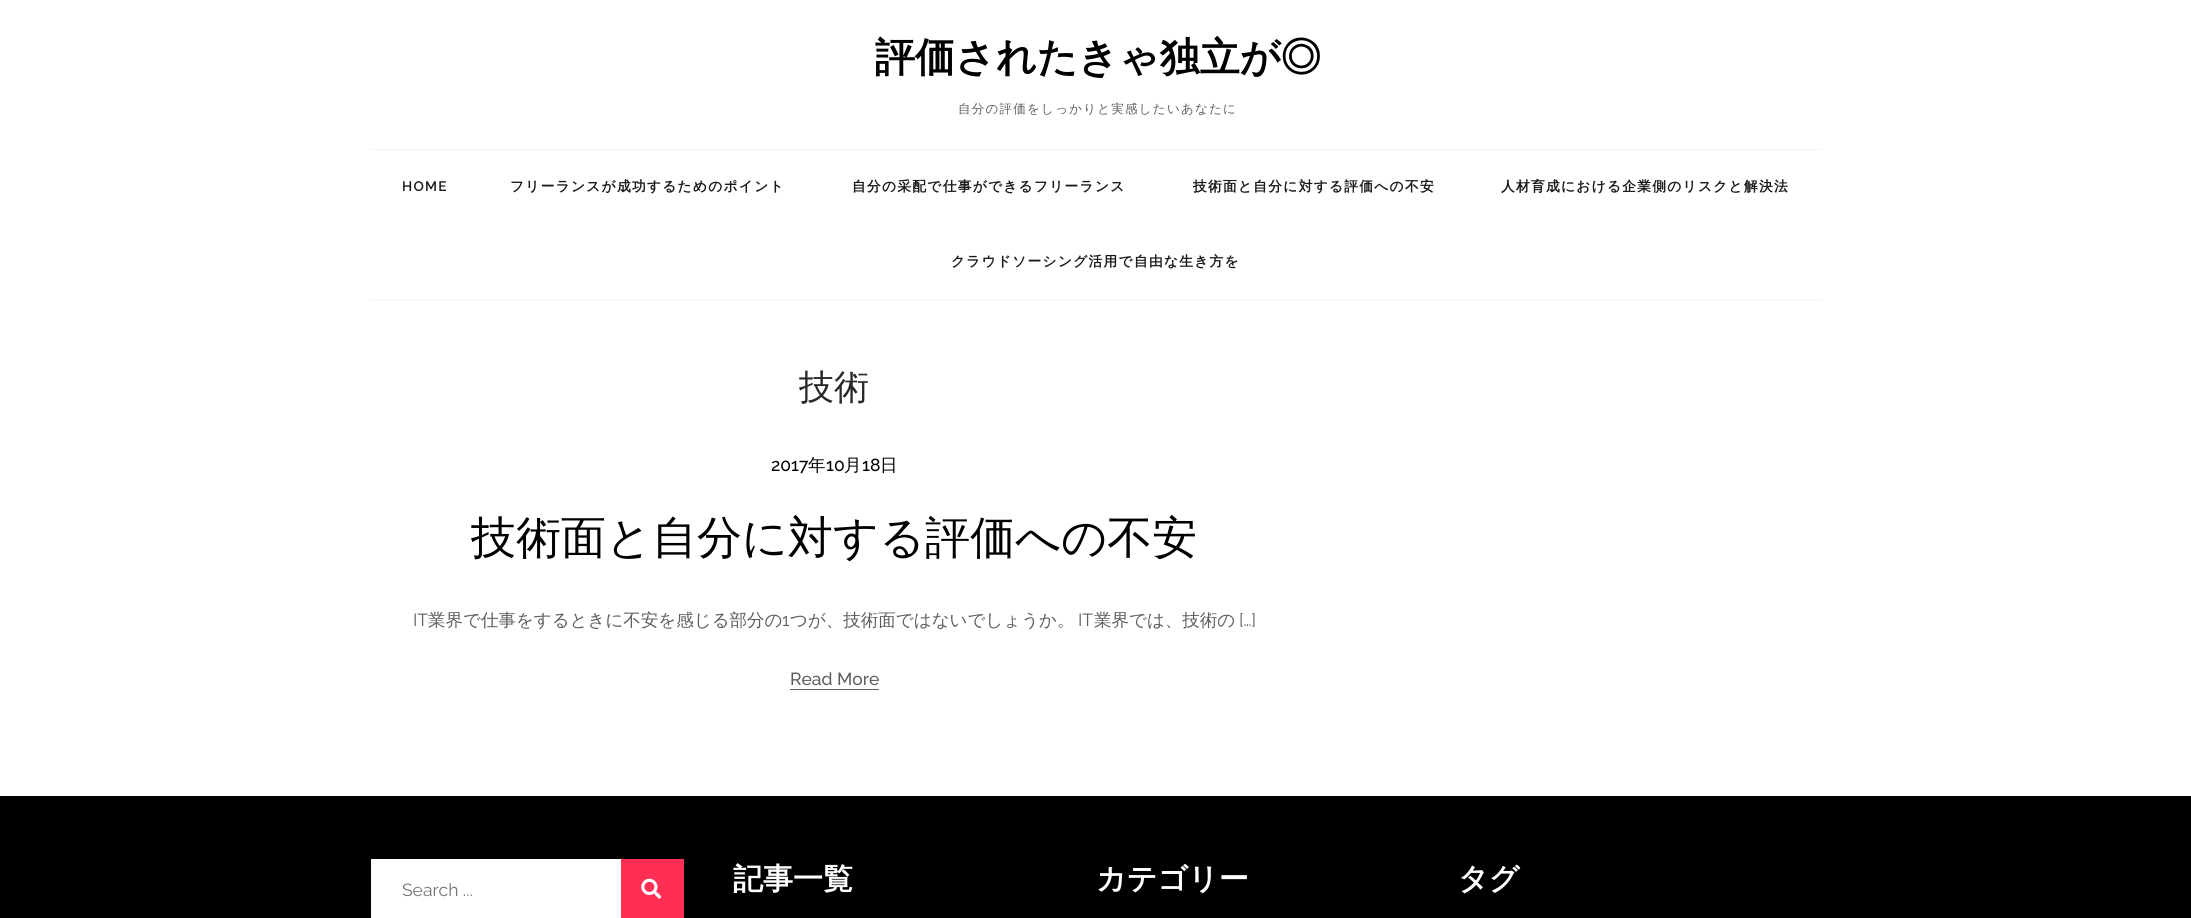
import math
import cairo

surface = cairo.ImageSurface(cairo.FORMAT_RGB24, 2191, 918)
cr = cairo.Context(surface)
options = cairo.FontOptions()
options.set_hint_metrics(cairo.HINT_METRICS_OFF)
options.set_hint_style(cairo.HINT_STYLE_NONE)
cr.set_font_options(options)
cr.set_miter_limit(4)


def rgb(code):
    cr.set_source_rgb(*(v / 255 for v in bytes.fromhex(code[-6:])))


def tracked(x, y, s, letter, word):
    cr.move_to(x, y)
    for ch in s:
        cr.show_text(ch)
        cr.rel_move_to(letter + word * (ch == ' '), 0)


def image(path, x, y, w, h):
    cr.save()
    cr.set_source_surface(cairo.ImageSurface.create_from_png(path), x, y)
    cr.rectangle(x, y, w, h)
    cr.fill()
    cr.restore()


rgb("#ffffff")
cr.paint()
for x, y, w, h, color in [
    (371, 149, 1450, 1, "#f5f5f5"),
    (371, 300, 1450, 1, "#f5f5f5"),
    (790, 689, 89, 1, "#5e5e5e"),
    (0, 796, 2191, 122, "#000000"),
    (371, 859, 250, 59, "#ffffff"),
    (621, 859, 63, 59, "#ff2e55"),
]:
    rgb(color)
    cr.rectangle(x, y, w, h)
    cr.fill()
image("img/1.png", 641, 878, 21, 21)
cr.select_font_face("WenQuanYi Zen Hei", cairo.FONT_SLANT_NORMAL, cairo.FONT_WEIGHT_BOLD)
cr.set_font_size(40)
rgb("#000000")
cr.move_to(875, 71)
cr.show_text("評価されたきゃ独立が◎")
cr.select_font_face("WenQuanYi Zen Hei Medium")
cr.set_font_size(12.5)
rgb("#5e5e5e")
tracked(958, 113, "自分の評価をしっかりと実感したいあなたに", 1.25, 0)
cr.select_font_face("Raleway SemiBold")
cr.set_font_size(13.75)
rgb("#1a1a1a")
tracked(402, 191, "HOME", 1.25, 0)
cr.select_font_face("WenQuanYi Zen Hei", cairo.FONT_SLANT_NORMAL, cairo.FONT_WEIGHT_BOLD)
for x, y, s in [
    (510, 191, "フリーランスが成功するためのポイント"),
    (852, 191, "自分の采配で仕事ができるフリーランス"),
    (1193, 191, "技術面と自分に対する評価への不安"),
    (1501, 191, "人材育成における企業側のリスクと解決法"),
    (951, 266, "クラウドソーシング活用で自由な生き方を"),
]:
    tracked(x, y, s, 1.25, 0)
cr.select_font_face("WenQuanYi Zen Hei Medium")
cr.set_font_size(35)
rgb("#282828")
cr.move_to(799, 399)
cr.show_text("技術")
cr.select_font_face("Raleway Medium")
cr.set_font_size(17.5)
rgb("#000000")
cr.move_to(771, 471)
cr.show_text("2017")
cr.select_font_face("WenQuanYi Zen Hei Medium")
cr.move_to(808, 471)
cr.show_text("年")
cr.select_font_face("Raleway Medium")
cr.move_to(826, 471)
cr.show_text("10")
cr.select_font_face("WenQuanYi Zen Hei Medium")
cr.move_to(844, 471)
cr.show_text("月")
cr.select_font_face("Raleway Medium")
cr.move_to(862, 471)
cr.show_text("18")
cr.select_font_face("WenQuanYi Zen Hei Medium")
cr.move_to(880, 471)
cr.show_text("日")
cr.set_font_size(45)
cr.move_to(471, 553)
cr.show_text("技術面と自分に対する評価への不安")
cr.select_font_face("Raleway")
cr.set_font_size(17.5)
rgb("#5e5e5e")
cr.move_to(413, 626)
cr.show_text("IT")
cr.select_font_face("WenQuanYi Zen Hei Medium")
cr.move_to(428, 626)
cr.show_text("業界で仕事をするときに不安を感じる部分の")
cr.select_font_face("Raleway")
cr.move_to(782, 626)
cr.show_text("1")
cr.select_font_face("WenQuanYi Zen Hei Medium")
cr.move_to(790, 626)
cr.show_text("つが、技術面ではないでしょうか。")
cr.select_font_face("Raleway")
cr.move_to(1078, 626)
cr.show_text("IT")
cr.select_font_face("WenQuanYi Zen Hei Medium")
cr.move_to(1094, 626)
cr.show_text("業界では、技術の")
cr.select_font_face("Raleway")
cr.move_to(1239, 626)
cr.show_text("[…]")
cr.select_font_face("Raleway Medium")
cr.move_to(790, 685)
cr.show_text("Read More")
cr.select_font_face("Raleway")
rgb("#757575")
cr.move_to(402, 896)
cr.show_text("Search ...")
cr.select_font_face("WenQuanYi Zen Hei", cairo.FONT_SLANT_NORMAL, cairo.FONT_WEIGHT_BOLD)
cr.set_font_size(30)
rgb("#ffffff")
for x, y, s in [
    (733, 889, "記事一覧"),
    (1096, 889, "カテゴリー"),
    (1458, 889, "タグ"),
]:
    cr.move_to(x, y)
    cr.show_text(s)
surface.write_to_png("page.png")
